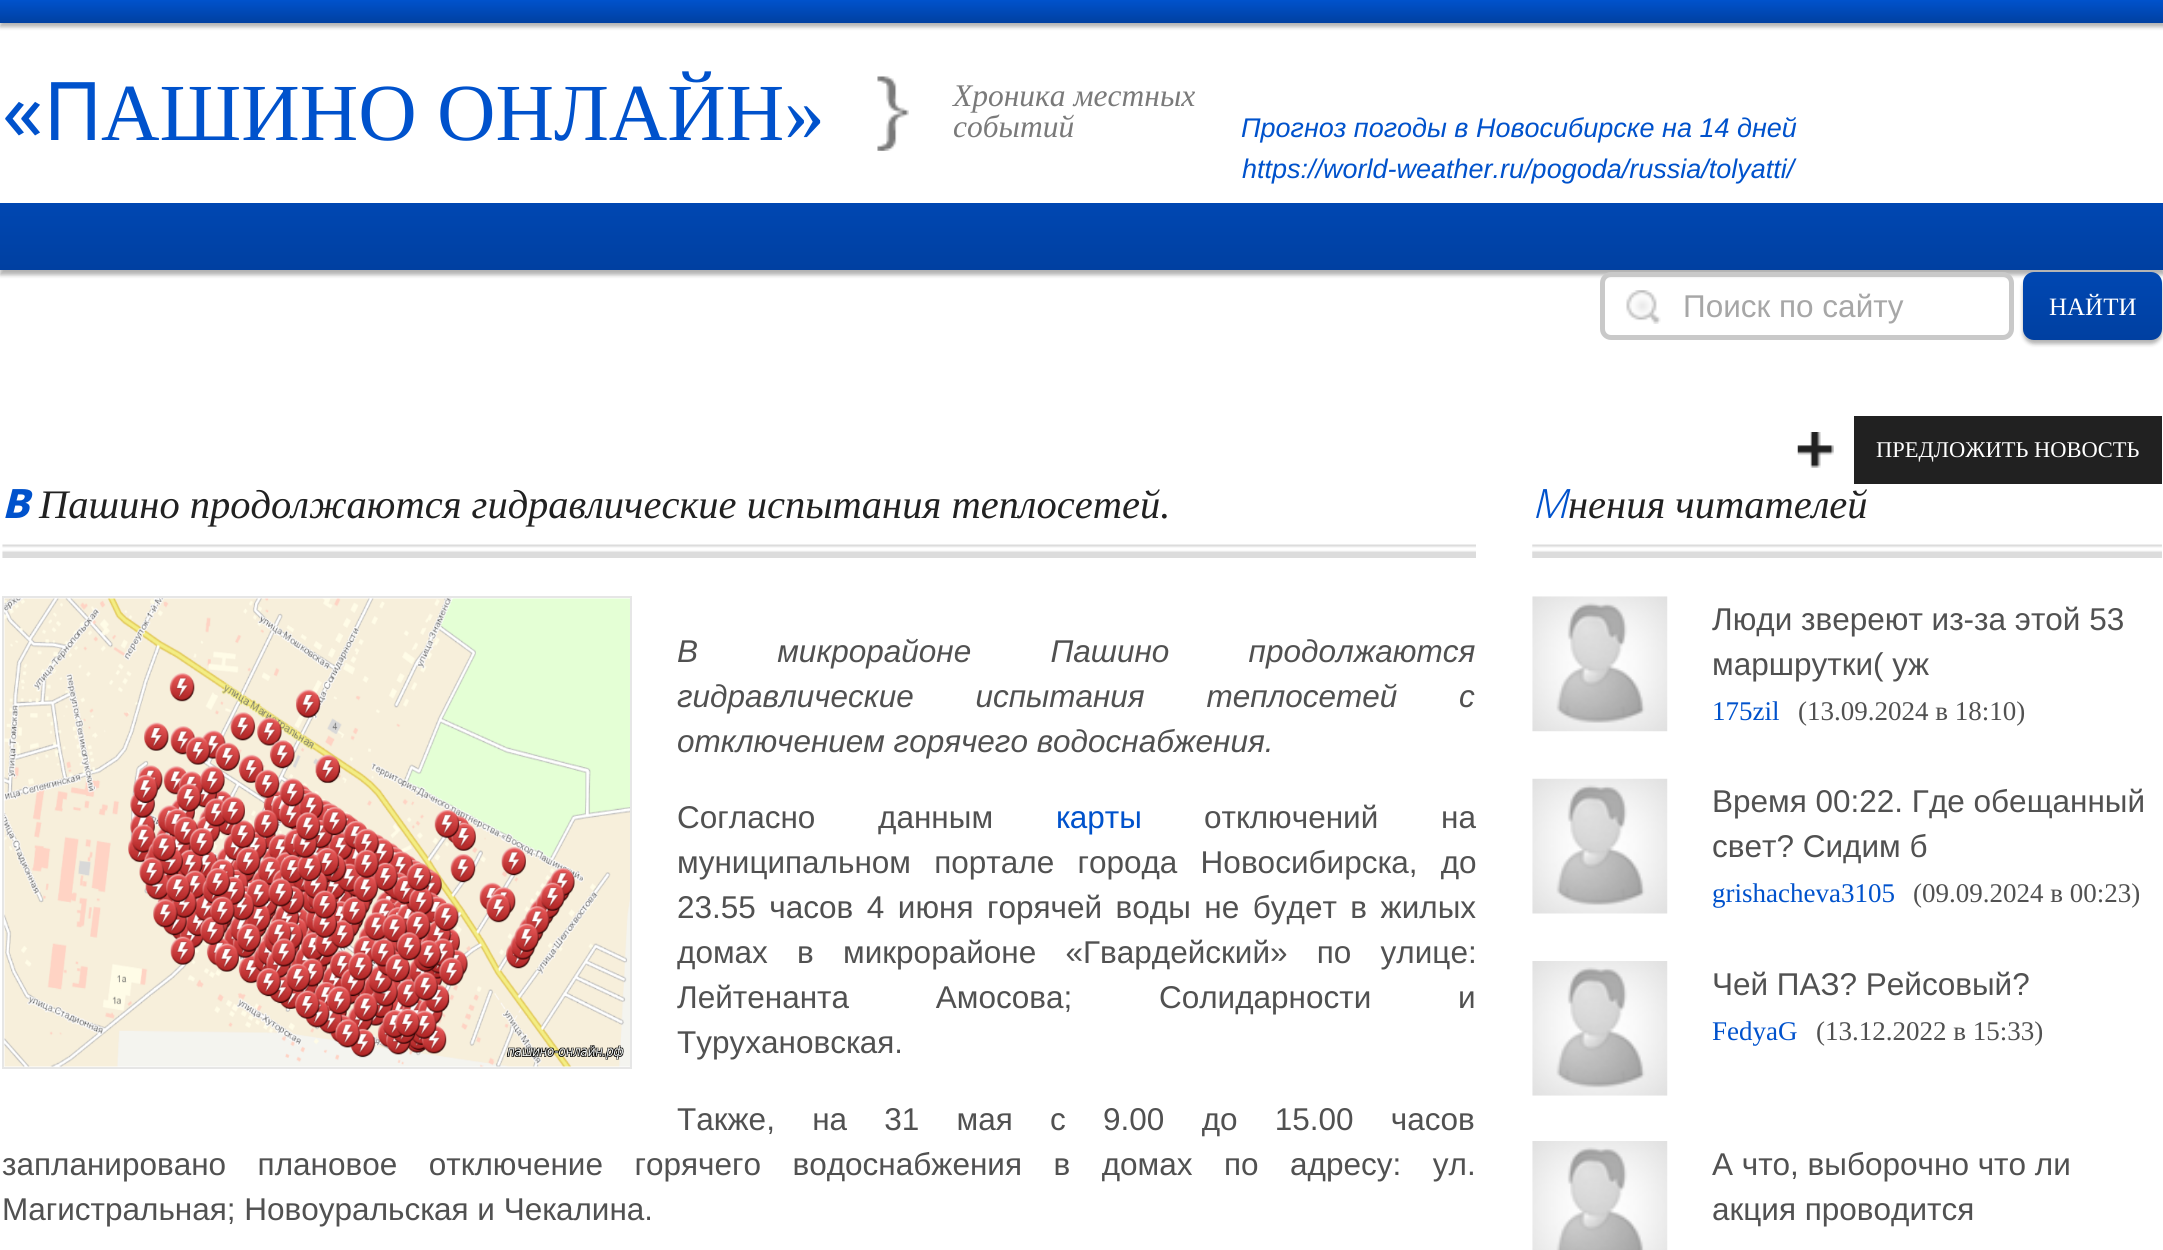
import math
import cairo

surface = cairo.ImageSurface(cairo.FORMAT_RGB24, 2163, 1250)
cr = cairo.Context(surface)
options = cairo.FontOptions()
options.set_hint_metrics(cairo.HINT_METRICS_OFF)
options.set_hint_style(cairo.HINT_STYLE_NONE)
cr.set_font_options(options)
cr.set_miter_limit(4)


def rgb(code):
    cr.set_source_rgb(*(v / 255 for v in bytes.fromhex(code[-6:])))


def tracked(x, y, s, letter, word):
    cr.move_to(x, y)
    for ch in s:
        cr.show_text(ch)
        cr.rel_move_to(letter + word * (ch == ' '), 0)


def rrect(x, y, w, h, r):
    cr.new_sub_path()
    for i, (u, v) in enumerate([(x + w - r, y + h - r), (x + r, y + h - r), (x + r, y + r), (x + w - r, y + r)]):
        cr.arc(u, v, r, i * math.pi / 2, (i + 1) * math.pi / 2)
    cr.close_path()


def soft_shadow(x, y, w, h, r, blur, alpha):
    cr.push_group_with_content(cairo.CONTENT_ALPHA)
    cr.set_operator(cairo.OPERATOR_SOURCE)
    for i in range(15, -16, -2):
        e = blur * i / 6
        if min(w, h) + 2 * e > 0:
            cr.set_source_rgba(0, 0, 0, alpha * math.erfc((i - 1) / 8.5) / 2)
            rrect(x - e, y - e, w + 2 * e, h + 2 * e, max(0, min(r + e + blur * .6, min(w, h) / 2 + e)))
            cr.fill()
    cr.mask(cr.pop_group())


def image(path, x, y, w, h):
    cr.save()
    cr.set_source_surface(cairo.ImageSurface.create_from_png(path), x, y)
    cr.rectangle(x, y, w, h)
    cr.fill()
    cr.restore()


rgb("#ffffff")
cr.paint()
rgb("#000000")
soft_shadow(0, 5, 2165, 22, 0, 2, 0.3)
gradient = cairo.LinearGradient(1082, 0, 1082, 23)
gradient.add_color_stop_rgba(0, 0, 0.322, 0.8, 1)
gradient.add_color_stop_rgba(1, 0, 0.251, 0.631, 1)
cr.set_source(gradient)
cr.rectangle(0, 0, 2163, 23)
cr.fill()
image("img/1.png", 877, 76, 32, 75)
image("img/2.png", 1626, 290, 35, 34)
rgb("#000000")
soft_shadow(0, 207, 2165, 68, 0, 2, 0.3)
rrect(1602.5, 274.5, 409, 63, 8.5)
rgb("#c9c9c9")
cr.set_line_width(5)
cr.stroke()
rgb("#000000")
soft_shadow(2023, 277, 139, 67, 11, 2, 0.3)
gradient = cairo.LinearGradient(2093, 272, 2093, 340)
gradient.add_color_stop_rgba(0, 0, 0.278, 0.698, 1)
gradient.add_color_stop_rgba(1, 0, 0.251, 0.631, 1)
cr.set_source(gradient)
rrect(2023, 272, 139, 68, 11)
cr.fill()
gradient = cairo.LinearGradient(1082, 202, 1082, 270)
gradient.add_color_stop_rgba(0, 0, 0.278, 0.698, 1)
gradient.add_color_stop_rgba(1, 0, 0.251, 0.631, 1)
cr.set_source(gradient)
cr.rectangle(0, 203, 2163, 67)
cr.fill()
image("img/3.png", 1797, 432, 37, 36)
rgb("#212121")
cr.rectangle(1854, 416, 308, 68)
cr.fill()
image("img/4.png", 2, 544, 1474, 14)
cr.rectangle(3, 597, 628, 471)
rgb("#e6e6e6")
cr.set_line_width(2)
cr.stroke()
image("img/5.png", 4, 598, 626, 469)
image("img/6.png", 1532, 544, 630, 14)
image("img/7.png", 1532, 596, 136, 136)
image("img/8.png", 1532, 778, 136, 136)
image("img/9.png", 1532, 961, 136, 135)
image("img/10.png", 1532, 1141, 136, 109)
cr.select_font_face("Noto Sans")
cr.set_font_size(81)
rgb("#0052cc")
cr.move_to(2, 140)
cr.show_text("«П")
cr.select_font_face("Liberation Serif")
cr.move_to(101, 140)
cr.show_text("АШИНО ОНЛАЙН»")
cr.select_font_face("Liberation Serif", cairo.FONT_SLANT_ITALIC)
cr.set_font_size(31.5)
rgb("#7a7a7a")
cr.move_to(953, 106)
cr.show_text("Хроника местных")
cr.move_to(953, 137)
cr.show_text("событий")
cr.select_font_face("Liberation Sans", cairo.FONT_SLANT_ITALIC)
cr.set_font_size(27)
rgb("#0052cc")
cr.move_to(1241, 137)
cr.show_text("Прогноз погоды в Новосибирске на 14 дней")
cr.move_to(1242, 178)
cr.show_text("https://world-weather.ru/pogoda/russia/tolyatti/")
cr.select_font_face("Liberation Sans")
cr.set_font_size(31.5)
rgb("#a7a7a7")
cr.move_to(1683, 317)
cr.show_text("Поиск по сайту")
cr.select_font_face("Liberation Serif")
cr.set_font_size(25)
rgb("#ffffff")
cr.move_to(2049, 315)
cr.show_text("НАЙТИ")
cr.set_font_size(22.5)
cr.move_to(1876, 457)
cr.show_text("ПРЕДЛОЖИТЬ НОВОСТЬ")
cr.select_font_face("Noto Sans ExtraBold", cairo.FONT_SLANT_ITALIC)
cr.set_font_size(40.5)
rgb("#0052cc")
cr.move_to(2, 518)
cr.show_text("В")
cr.select_font_face("Liberation Serif", cairo.FONT_SLANT_ITALIC)
rgb("#212121")
cr.move_to(39, 518)
cr.show_text("Пашино продолжаются гидравлические испытания теплосетей.")
cr.select_font_face("Liberation Sans", cairo.FONT_SLANT_ITALIC)
cr.set_font_size(31.5)
rgb("#515151")
tracked(677, 662, "В микрорайоне Пашино продолжаются", 0, 70.5)
tracked(677, 707, "гидравлические испытания теплосетей с", 0, 53)
cr.move_to(677, 752)
cr.show_text("отключением горячего водоснабжения.")
cr.select_font_face("Liberation Sans")
tracked(677, 828, "Согласно данным", 0, 54)
rgb("#0052cc")
cr.move_to(1056, 828)
cr.show_text("карты")
rgb("#515151")
tracked(1204, 828, "отключений на", 0, 54)
tracked(677, 873, "муниципальном портале города Новосибирска, до", 0, 14.5)
tracked(677, 918, "23.55 часов 4 июня горячей воды не будет в жилых", 0, 4.75)
tracked(677, 963, "домах в микрорайоне «Гвардейский» по улице:", 0, 20.5)
tracked(677, 1008, "Лейтенанта Амосова; Солидарности и", 0, 78)
cr.move_to(677, 1053)
cr.show_text("Турухановская.")
tracked(677, 1130, "Также, на 31 мая с 9.00 до 15.00 часов", 0, 28.5)
tracked(2, 1175, "запланировано плановое отключение горячего водоснабжения в домах по адресу: ул.", 0, 22.75)
cr.move_to(2, 1220)
cr.show_text("Магистральная; Новоуральская и Чекалина.")
cr.select_font_face("Noto Sans Light", cairo.FONT_SLANT_ITALIC)
cr.set_font_size(40.5)
rgb("#0052cc")
cr.move_to(1532, 518)
cr.show_text("М")
cr.select_font_face("Liberation Serif", cairo.FONT_SLANT_ITALIC)
rgb("#212121")
cr.move_to(1568, 518)
cr.show_text("нения читателей")
cr.select_font_face("Liberation Sans")
cr.set_font_size(31.5)
rgb("#515151")
cr.move_to(1712, 630)
cr.show_text("Люди звереют из-за этой 53")
cr.move_to(1712, 675)
cr.show_text("маршрутки( уж")
cr.select_font_face("Liberation Serif")
cr.set_font_size(27)
rgb("#0052cc")
cr.move_to(1712, 720)
cr.show_text("175zil")
rgb("#515151")
cr.move_to(1798, 720)
cr.show_text("(13.09.2024 в 18:10)")
cr.select_font_face("Liberation Sans")
cr.set_font_size(31.5)
cr.move_to(1712, 812)
cr.show_text("Время 00:22. Где обещанный")
cr.move_to(1712, 857)
cr.show_text("свет? Сидим б")
cr.select_font_face("Liberation Serif")
cr.set_font_size(27)
rgb("#0052cc")
cr.move_to(1712, 902)
cr.show_text("grishacheva3105")
rgb("#515151")
cr.move_to(1913, 902)
cr.show_text("(09.09.2024 в 00:23)")
cr.select_font_face("Liberation Sans")
cr.set_font_size(31.5)
cr.move_to(1712, 995)
cr.show_text("Чей ПАЗ? Рейсовый?")
cr.select_font_face("Liberation Serif")
cr.set_font_size(27)
rgb("#0052cc")
cr.move_to(1712, 1040)
cr.show_text("FedyaG")
rgb("#515151")
cr.move_to(1816, 1040)
cr.show_text("(13.12.2022 в 15:33)")
cr.select_font_face("Liberation Sans")
cr.set_font_size(31.5)
cr.move_to(1712, 1175)
cr.show_text("А что, выборочно что ли")
cr.move_to(1712, 1220)
cr.show_text("акция проводится")
surface.write_to_png("page.png")
